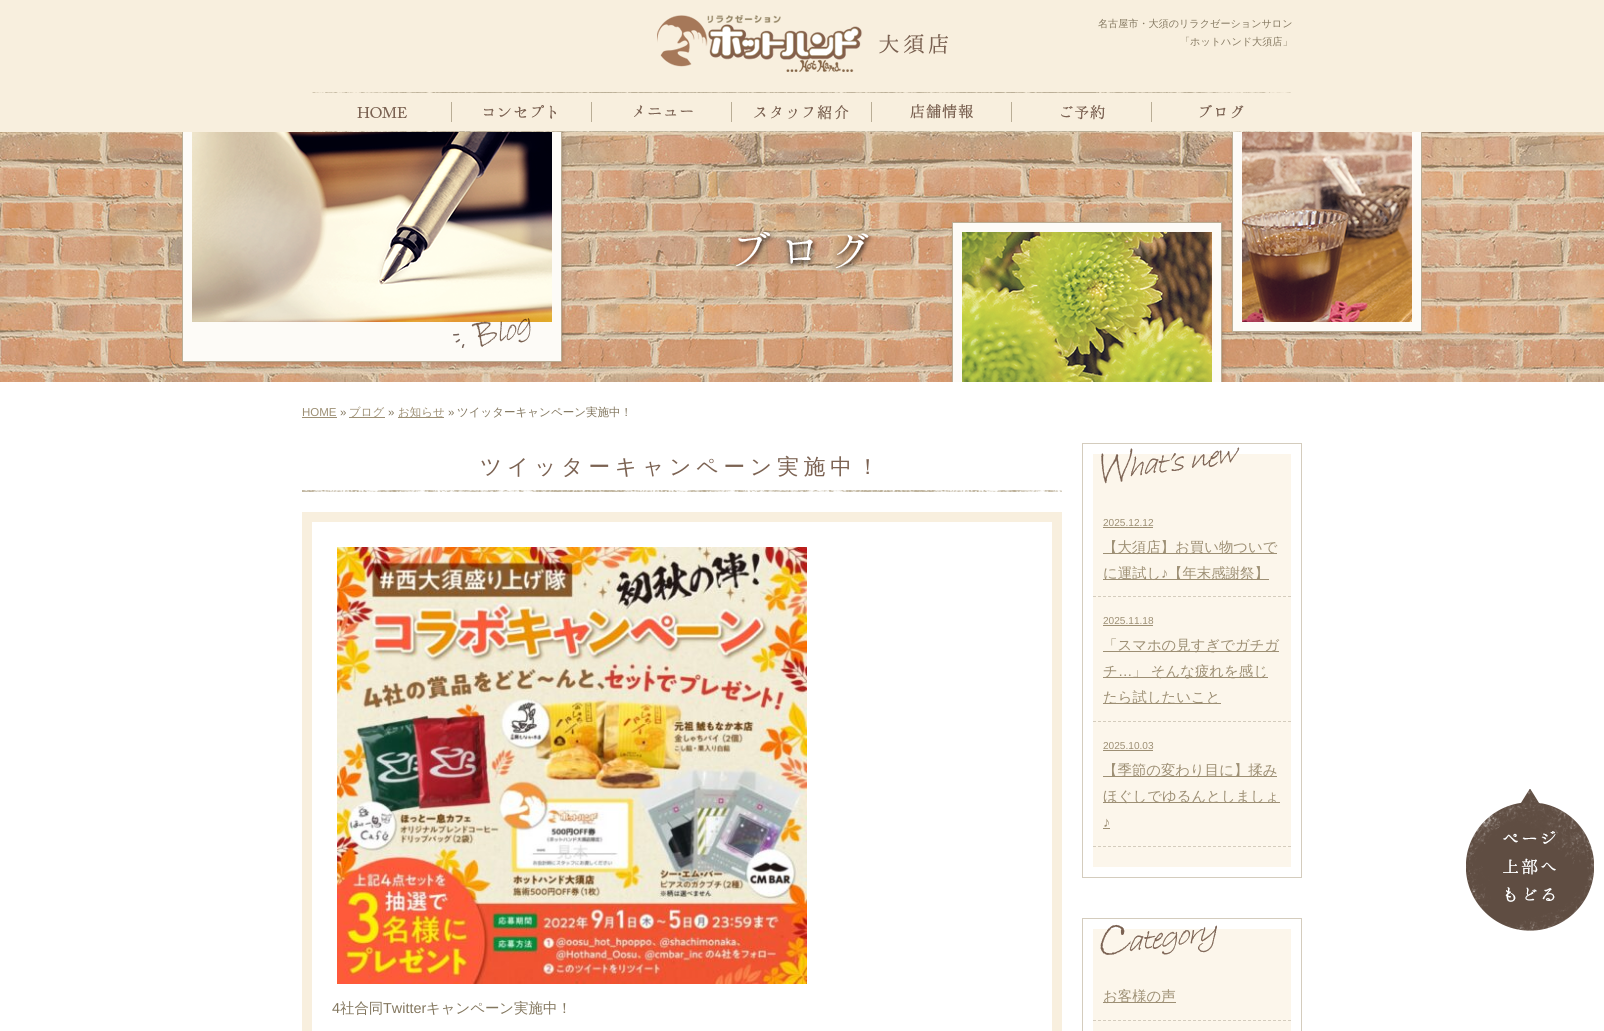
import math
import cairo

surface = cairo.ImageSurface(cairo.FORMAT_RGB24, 1604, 1031)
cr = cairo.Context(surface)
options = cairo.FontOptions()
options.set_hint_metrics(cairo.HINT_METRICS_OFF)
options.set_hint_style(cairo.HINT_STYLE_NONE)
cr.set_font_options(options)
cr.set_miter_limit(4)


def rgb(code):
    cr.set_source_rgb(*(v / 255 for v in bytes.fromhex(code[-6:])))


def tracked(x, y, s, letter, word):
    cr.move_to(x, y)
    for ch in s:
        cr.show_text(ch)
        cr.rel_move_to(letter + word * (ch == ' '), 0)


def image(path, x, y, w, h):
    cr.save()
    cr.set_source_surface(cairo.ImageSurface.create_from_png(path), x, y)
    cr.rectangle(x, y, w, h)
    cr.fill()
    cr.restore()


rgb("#ffffff")
cr.paint()
rgb("#f8efde")
cr.rectangle(0, 0, 1604, 132)
cr.fill()
image("img/1.png", 657, 15, 291, 57)
image("img/2.png", 312, 92, 140, 40)
image("img/3.png", 452, 92, 140, 40)
image("img/4.png", 592, 92, 140, 40)
image("img/5.png", 732, 92, 140, 40)
image("img/6.png", 872, 92, 140, 40)
image("img/7.png", 1012, 92, 140, 40)
image("img/8.png", 1152, 92, 139, 40)
image("img/9.png", 0, 132, 1604, 250)
image("img/10.png", 182, 132, 1240, 250)
for x, y, w, h, color in [
    (302, 417, 35, 1, "#9d8f74"),
    (349, 417, 36, 1, "#9d8f74"),
    (398, 417, 46, 1, "#9d8f74"),
]:
    rgb(color)
    cr.rectangle(x, y, w, h)
    cr.fill()
image("img/11.png", 302, 490, 760, 2)
cr.rectangle(307, 517, 750, 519)
rgb("#f8efde")
cr.set_line_width(10)
cr.stroke()
image("img/12.png", 337, 547, 470, 437)
rgb("#d4ccbd")
cr.rectangle(1082, 443, 220, 435)
cr.fill()
rgb("#fcf6eb")
cr.rectangle(1088, 449, 208, 423)
cr.fill_preserve()
rgb("#ffffff")
cr.stroke()
image("img/13.png", 1101, 447, 139, 37)
cr.new_path()
cr.move_to(1093, 596.5)
cr.line_to(1291, 596.5)
rgb("#d4ccbd")
cr.set_line_width(1)
cr.set_dash([3, 2])
cr.stroke()
for x, y, w, h, color in [
    (1103, 527, 50, 1, "#9d8f74"),
    (1103, 553, 174, 1, "#9d8f74"),
    (1103, 579, 166, 1, "#9d8f74"),
]:
    rgb(color)
    cr.rectangle(x, y, w, h)
    cr.fill()
cr.new_path()
cr.move_to(1093, 721.5)
cr.line_to(1291, 721.5)
rgb("#d4ccbd")
cr.stroke()
for x, y, w, h, color in [
    (1103, 625, 50, 1, "#9d8f74"),
    (1103, 651, 176, 1, "#9d8f74"),
    (1103, 677, 165, 1, "#9d8f74"),
    (1103, 703, 118, 1, "#9d8f74"),
]:
    rgb(color)
    cr.rectangle(x, y, w, h)
    cr.fill()
cr.new_path()
cr.move_to(1093, 846.5)
cr.line_to(1291, 846.5)
rgb("#d4ccbd")
cr.stroke()
for x, y, w, h, color in [
    (1103, 750, 50, 1, "#9d8f74"),
    (1103, 776, 174, 1, "#9d8f74"),
    (1103, 802, 177, 1, "#9d8f74"),
    (1103, 828, 7, 1, "#9d8f74"),
    (1082, 918, 220, 113, "#d4ccbd"),
]:
    rgb(color)
    cr.rectangle(x, y, w, h)
    cr.fill()
rgb("#fcf6eb")
cr.rectangle(1088, 924, 208, 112)
cr.fill_preserve()
rgb("#ffffff")
cr.set_line_width(10)
cr.set_dash([])
cr.stroke()
image("img/14.png", 1100, 924, 117, 31)
cr.new_path()
cr.move_to(1093, 1020.5)
cr.line_to(1291, 1020.5)
rgb("#d4ccbd")
cr.set_line_width(1)
cr.set_dash([3, 2])
cr.stroke()
rgb("#9d8f74")
cr.rectangle(1103, 1002, 73, 1)
cr.fill()
image("img/15.png", 1466, 789, 128, 142)
cr.select_font_face("WenQuanYi Zen Hei Medium")
cr.set_font_size(10.1)
rgb("#83775f")
cr.move_to(1098, 27)
cr.show_text("名古屋市・大須のリラクゼーションサロン")
cr.move_to(1180, 45)
cr.show_text("「ホットハンド大須店」")
cr.select_font_face("Liberation Sans")
cr.set_font_size(11.5)
rgb("#9d8f74")
cr.move_to(302, 416)
cr.show_text("HOME")
rgb("#83775f")
cr.move_to(340, 416)
cr.show_text("»")
cr.select_font_face("WenQuanYi Zen Hei Medium")
rgb("#9d8f74")
cr.move_to(349, 416)
cr.show_text("ブログ")
cr.select_font_face("Liberation Sans")
rgb("#83775f")
cr.move_to(388, 416)
cr.show_text("»")
cr.select_font_face("WenQuanYi Zen Hei Medium")
rgb("#9d8f74")
cr.move_to(398, 416)
cr.show_text("お知らせ")
cr.select_font_face("Liberation Sans")
rgb("#83775f")
cr.move_to(448, 416)
cr.show_text("»")
cr.select_font_face("WenQuanYi Zen Hei Medium")
cr.move_to(457, 416)
cr.show_text("ツイッターキャンペーン実施中！")
cr.set_font_size(21.6)
rgb("#7b6252")
tracked(480, 474, "ツイッターキャンペーン実施中！", 5, 0)
cr.select_font_face("Liberation Sans")
cr.set_font_size(14.4)
rgb("#83775f")
cr.move_to(332, 1013)
cr.show_text("4")
cr.select_font_face("WenQuanYi Zen Hei Medium")
cr.move_to(340, 1013)
cr.show_text("社合同")
cr.select_font_face("Liberation Sans")
cr.move_to(383, 1013)
cr.show_text("Twitter")
cr.select_font_face("WenQuanYi Zen Hei Medium")
cr.move_to(426, 1013)
cr.show_text("キャンペーン実施中！")
cr.select_font_face("Liberation Sans")
cr.set_font_size(10.1)
rgb("#9d8f74")
cr.move_to(1103, 526)
cr.show_text("2025.12.12")
cr.select_font_face("WenQuanYi Zen Hei Medium")
cr.set_font_size(14.4)
cr.move_to(1103, 552)
cr.show_text("【大須店】お買い物ついで")
cr.move_to(1103, 578)
cr.show_text("に運試し")
cr.select_font_face("Liberation Sans")
cr.move_to(1161, 578)
cr.show_text("♪")
cr.select_font_face("WenQuanYi Zen Hei Medium")
cr.move_to(1168, 578)
cr.show_text("【年末感謝祭】")
cr.select_font_face("Liberation Sans")
cr.set_font_size(10.1)
cr.move_to(1103, 624)
cr.show_text("2025.11.18")
cr.select_font_face("WenQuanYi Zen Hei Medium")
cr.set_font_size(14.4)
cr.move_to(1103, 650)
cr.show_text("「スマホの見すぎでガチガ")
cr.move_to(1103, 676)
cr.show_text("チ")
cr.select_font_face("Liberation Sans")
cr.move_to(1118, 676)
cr.show_text("…")
cr.select_font_face("WenQuanYi Zen Hei Medium")
cr.move_to(1132, 676)
cr.show_text("」 そんな疲れを感じ")
cr.move_to(1103, 702)
cr.show_text("たら試したいこと")
cr.select_font_face("Liberation Sans")
cr.set_font_size(10.1)
cr.move_to(1103, 749)
cr.show_text("2025.10.03")
cr.select_font_face("WenQuanYi Zen Hei Medium")
cr.set_font_size(14.4)
cr.move_to(1103, 775)
cr.show_text("【季節の変わり目に】揉み")
cr.move_to(1103, 801)
cr.show_text("ほぐしでゆるんとしましょ")
cr.select_font_face("Liberation Sans")
cr.move_to(1103, 827)
cr.show_text("♪")
cr.select_font_face("WenQuanYi Zen Hei Medium")
cr.move_to(1103, 1001)
cr.show_text("お客様の声")
surface.write_to_png("page.png")
